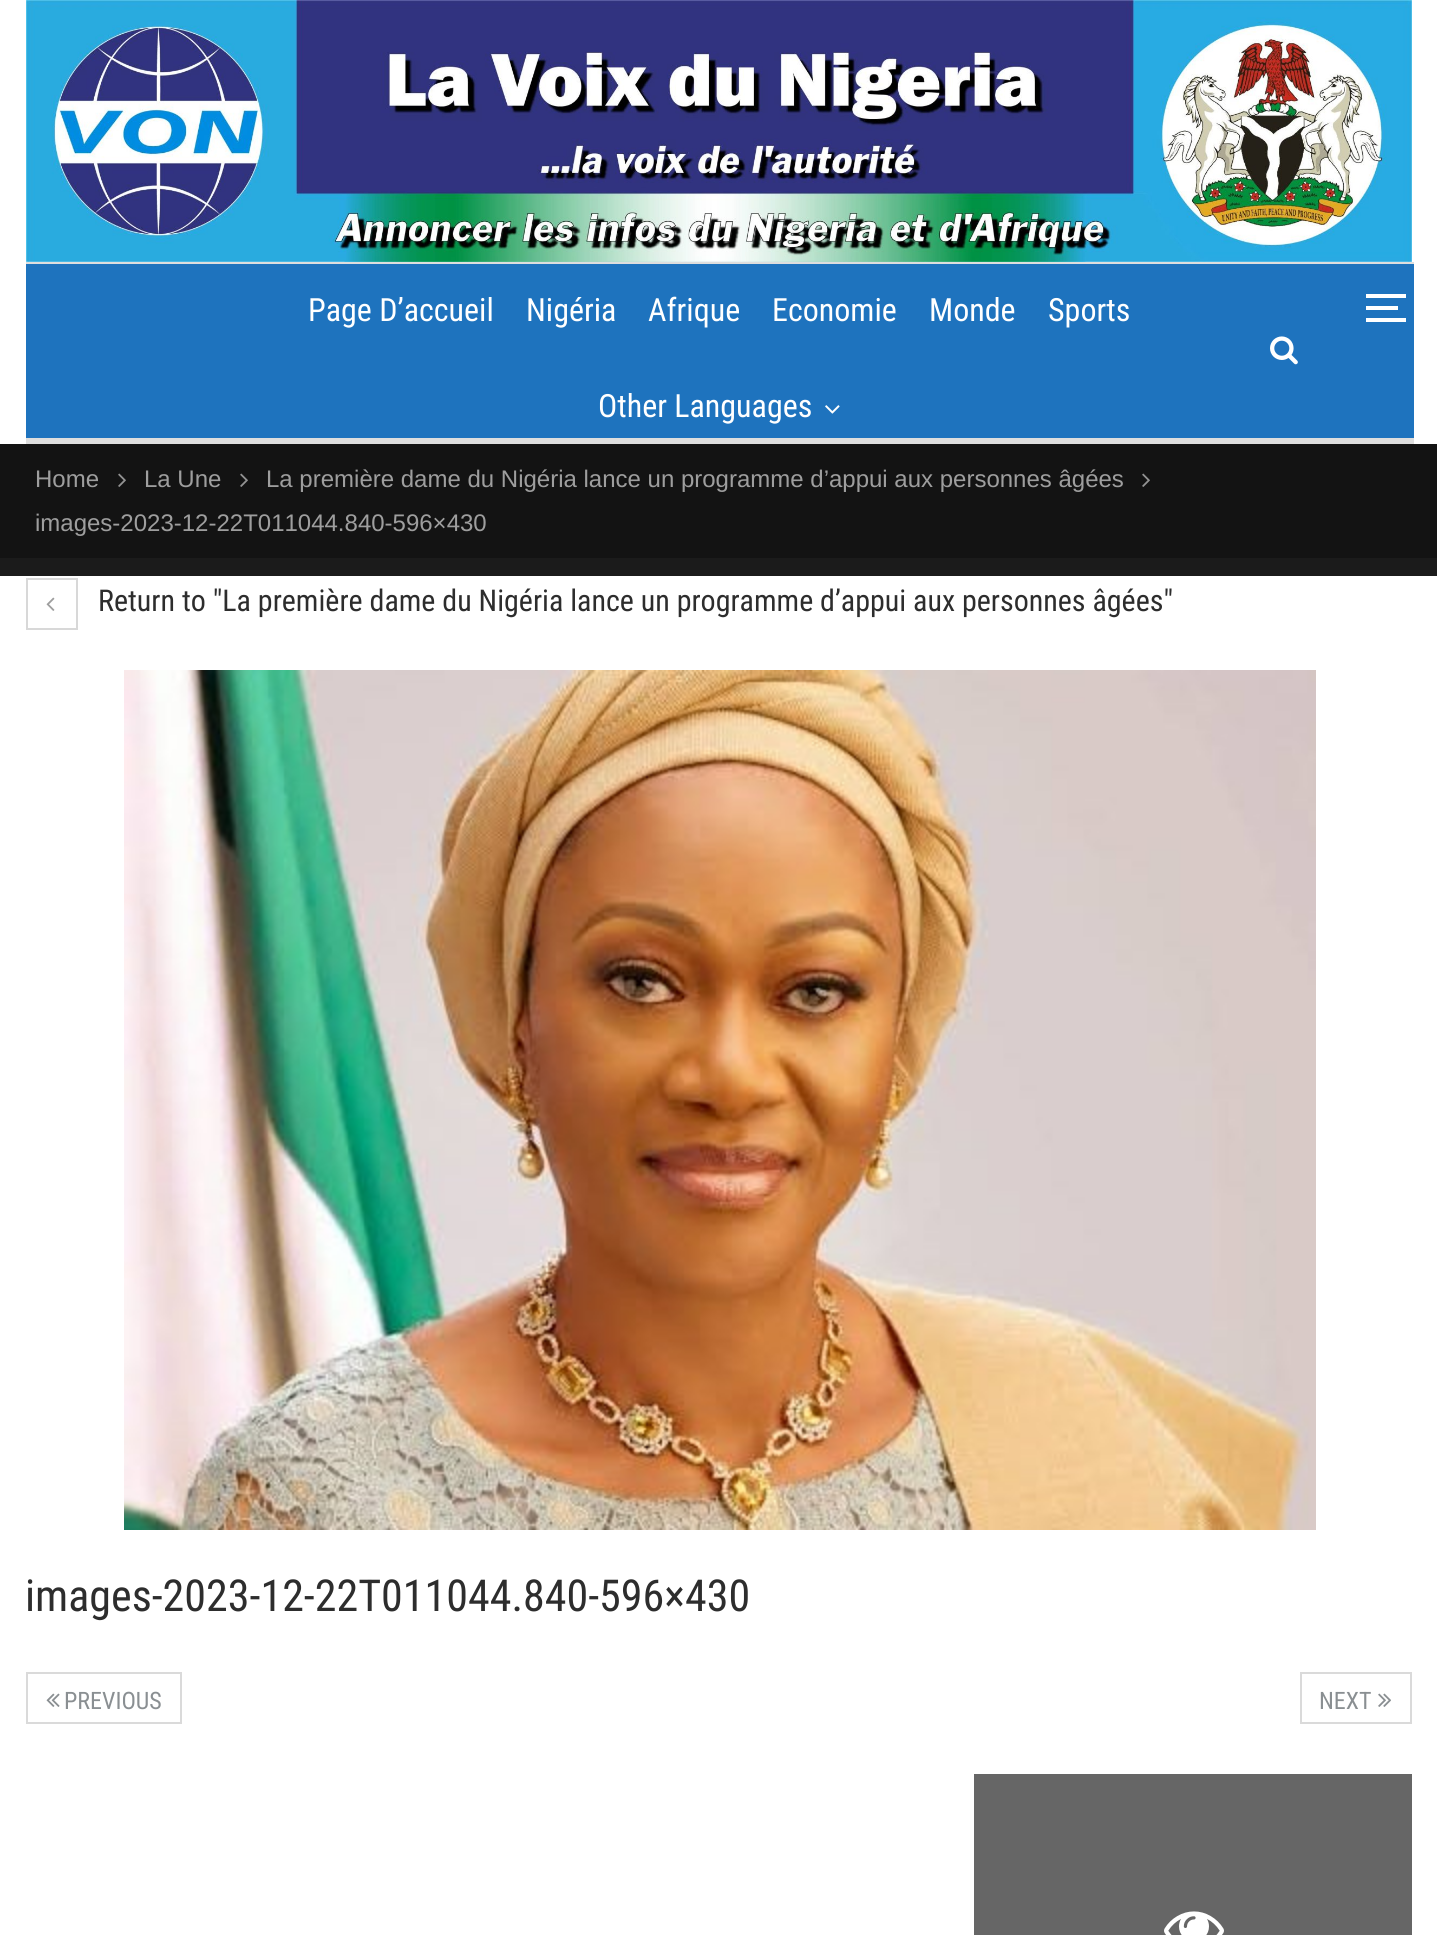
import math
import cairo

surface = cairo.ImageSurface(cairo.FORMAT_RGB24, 1437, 1935)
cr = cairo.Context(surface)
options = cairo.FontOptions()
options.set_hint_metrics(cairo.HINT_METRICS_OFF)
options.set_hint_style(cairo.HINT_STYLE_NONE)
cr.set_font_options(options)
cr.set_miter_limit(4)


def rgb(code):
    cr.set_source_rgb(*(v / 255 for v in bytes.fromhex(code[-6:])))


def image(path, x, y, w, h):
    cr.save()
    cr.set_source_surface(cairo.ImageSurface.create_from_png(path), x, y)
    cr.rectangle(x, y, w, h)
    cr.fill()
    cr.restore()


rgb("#ffffff")
cr.paint()
image("img/1.png", 26, 0, 1386, 262)
for x, y, w, h, color in [
    (26, 264, 1388, 174, "#1e73be"),
    (26, 262, 1388, 2, "#dedede"),
    (26, 438, 1388, 6, "#dedede"),
]:
    rgb(color)
    cr.rectangle(x, y, w, h)
    cr.fill()
image("img/2.png", 825, 405, 15, 9)
for x, y, w, h, color in [
    (1366, 306, 32, 4, "#ffffff"),
    (1366, 294, 40, 4, "#ffffff"),
    (1366, 318, 40, 4, "#ffffff"),
]:
    rgb(color)
    cr.rectangle(x, y, w, h)
    cr.fill()
image("img/3.png", 1270, 336, 28, 29)
rgb("#131313")
cr.rectangle(0, 444, 1437, 114)
cr.fill()
image("img/4.png", 118, 473, 8, 14)
image("img/4.png", 240, 473, 8, 14)
image("img/4.png", 1142, 473, 8, 14)
rgb("#1b1b1b")
cr.rectangle(0, 558, 1437, 18)
cr.fill()
cr.rectangle(27, 579, 50, 50)
rgb("#d8d8d8")
cr.stroke()
image("img/5.png", 46, 597, 9, 14)
image("img/6.png", 124, 670, 1192, 860)
cr.rectangle(27, 1673, 154, 50)
rgb("#dadada")
cr.stroke()
image("img/7.png", 46, 1693, 14, 14)
cr.rectangle(1301, 1673, 110, 50)
cr.stroke()
image("img/8.png", 1378, 1693, 13, 14)
rgb("#666666")
cr.rectangle(974, 1774, 438, 161)
cr.fill()
image("img/9.png", 1164, 1911, 60, 24)
cr.select_font_face("Roboto Condensed")
cr.set_font_size(32)
rgb("#ffffff")
for x, y, s in [
    (308, 321, "Page D’accueil"),
    (526, 321, "Nigéria"),
    (648, 321, "Afrique"),
    (772, 321, "Economie"),
    (929, 321, "Monde"),
    (1048, 321, "Sports"),
    (598, 417, "Other Languages"),
]:
    cr.move_to(x, y)
    cr.show_text(s)
cr.select_font_face("Liberation Sans")
cr.set_font_size(24)
rgb("#9e9e9e")
for x, y, s in [
    (35, 487, "Home"),
    (144, 487, "La Une"),
    (266, 487, "La première dame du Nigéria lance un programme d’appui aux personnes âgées"),
    (35, 531, "images-2023-12-22T011044.840-596×430"),
]:
    cr.move_to(x, y)
    cr.show_text(s)
cr.select_font_face("Roboto Condensed")
cr.set_font_size(30)
rgb("#2d2d2d")
cr.move_to(98, 611)
cr.show_text("Return to \"La première dame du Nigéria lance un programme d’appui aux personnes âgées\"")
cr.set_font_size(44)
cr.move_to(25, 1611)
cr.show_text("images-2023-12-22T011044.840-596×430")
cr.set_font_size(24)
rgb("#8a8f92")
cr.move_to(64, 1709)
cr.show_text("PREVIOUS")
cr.move_to(1319, 1709)
cr.show_text("NEXT")
surface.write_to_png("page.png")
